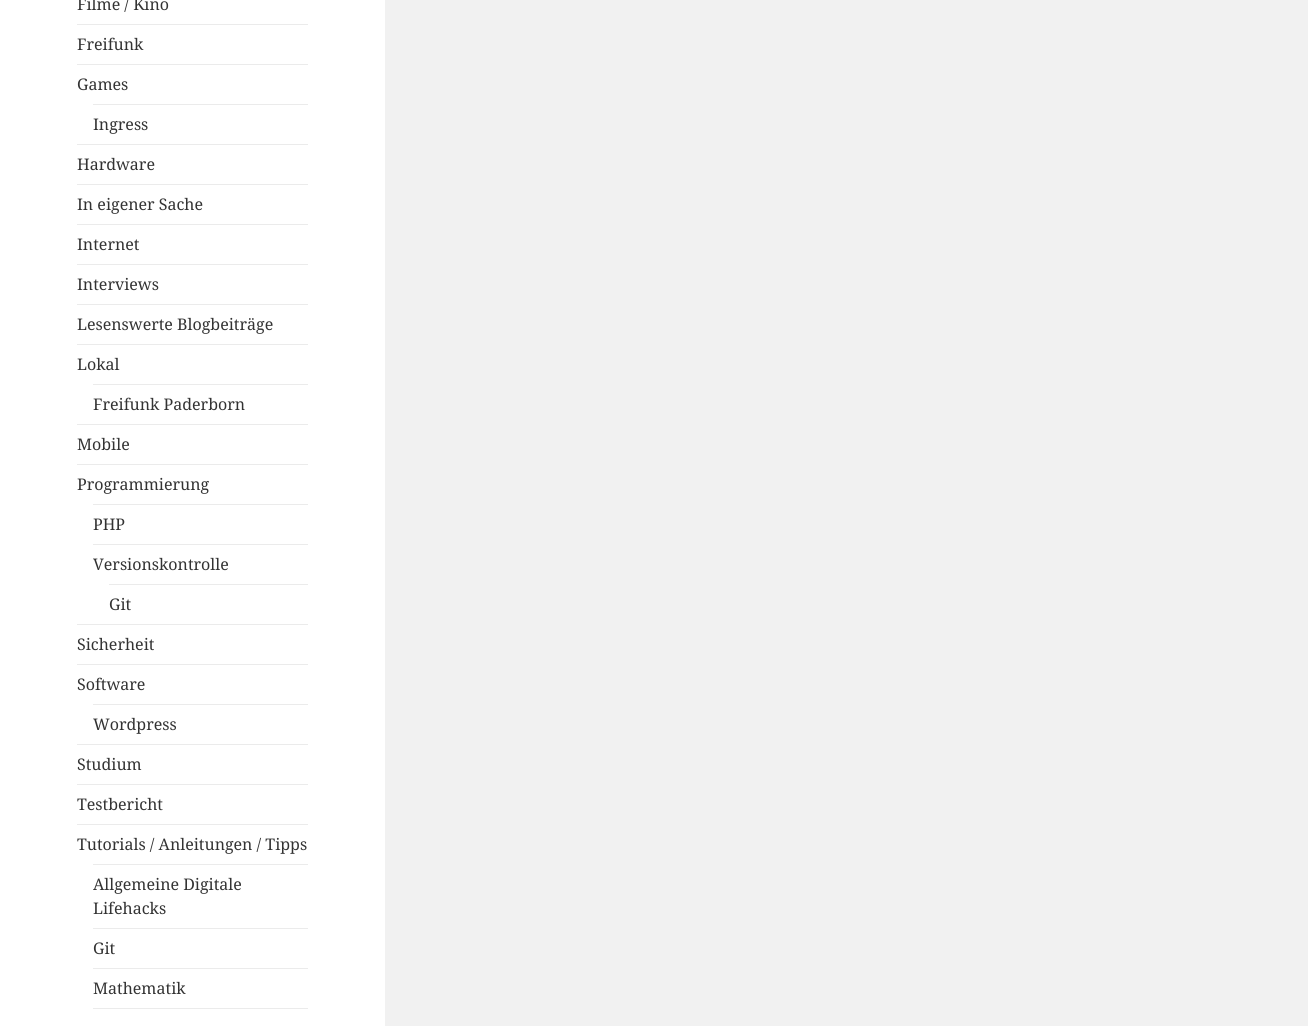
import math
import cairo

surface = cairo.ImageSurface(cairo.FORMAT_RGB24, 1308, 1026)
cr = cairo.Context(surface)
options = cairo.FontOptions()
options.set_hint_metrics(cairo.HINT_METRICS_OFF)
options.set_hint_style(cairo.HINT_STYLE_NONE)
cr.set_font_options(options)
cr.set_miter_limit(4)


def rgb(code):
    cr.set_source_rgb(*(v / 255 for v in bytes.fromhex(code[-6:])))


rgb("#f1f1f1")
cr.paint()
for x, y, w, h, color in [
    (0, 0, 385, 1026, "#ffffff"),
    (77, 24, 231, 1, "#ebebeb"),
    (77, 64, 231, 1, "#ebebeb"),
    (93, 104, 215, 1, "#ebebeb"),
    (77, 144, 231, 1, "#ebebeb"),
    (77, 184, 231, 1, "#ebebeb"),
    (77, 224, 231, 1, "#ebebeb"),
    (77, 264, 231, 1, "#ebebeb"),
    (77, 304, 231, 1, "#ebebeb"),
    (77, 344, 231, 1, "#ebebeb"),
    (93, 384, 215, 1, "#ebebeb"),
    (77, 424, 231, 1, "#ebebeb"),
    (77, 464, 231, 1, "#ebebeb"),
    (93, 504, 215, 1, "#ebebeb"),
    (93, 544, 215, 1, "#ebebeb"),
    (109, 584, 199, 1, "#ebebeb"),
    (77, 624, 231, 1, "#ebebeb"),
    (77, 664, 231, 1, "#ebebeb"),
    (93, 704, 215, 1, "#ebebeb"),
    (77, 744, 231, 1, "#ebebeb"),
    (77, 784, 231, 1, "#ebebeb"),
    (77, 824, 231, 1, "#ebebeb"),
    (93, 864, 215, 1, "#ebebeb"),
    (93, 928, 215, 1, "#ebebeb"),
    (93, 968, 215, 1, "#ebebeb"),
    (93, 1008, 215, 1, "#ebebeb"),
]:
    rgb(color)
    cr.rectangle(x, y, w, h)
    cr.fill()
cr.select_font_face("Noto Serif")
cr.set_font_size(16)
rgb("#333333")
for x, y, s in [
    (77, 10, "Filme / Kino"),
    (77, 50, "Freifunk"),
    (77, 90, "Games"),
    (93, 130, "Ingress"),
    (77, 170, "Hardware"),
    (77, 210, "In eigener Sache"),
    (77, 250, "Internet"),
    (77, 290, "Interviews"),
    (77, 330, "Lesenswerte Blogbeiträge"),
    (77, 370, "Lokal"),
    (93, 410, "Freifunk Paderborn"),
    (77, 450, "Mobile"),
    (77, 490, "Programmierung"),
    (93, 530, "PHP"),
    (93, 570, "Versionskontrolle"),
    (109, 610, "Git"),
    (77, 650, "Sicherheit"),
    (77, 690, "Software"),
    (93, 730, "Wordpress"),
    (77, 770, "Studium"),
    (77, 810, "Testbericht"),
    (77, 850, "Tutorials / Anleitungen / Tipps"),
    (93, 890, "Allgemeine Digitale"),
    (93, 914, "Lifehacks"),
    (93, 954, "Git"),
    (93, 994, "Mathematik"),
]:
    cr.move_to(x, y)
    cr.show_text(s)
surface.write_to_png("page.png")
